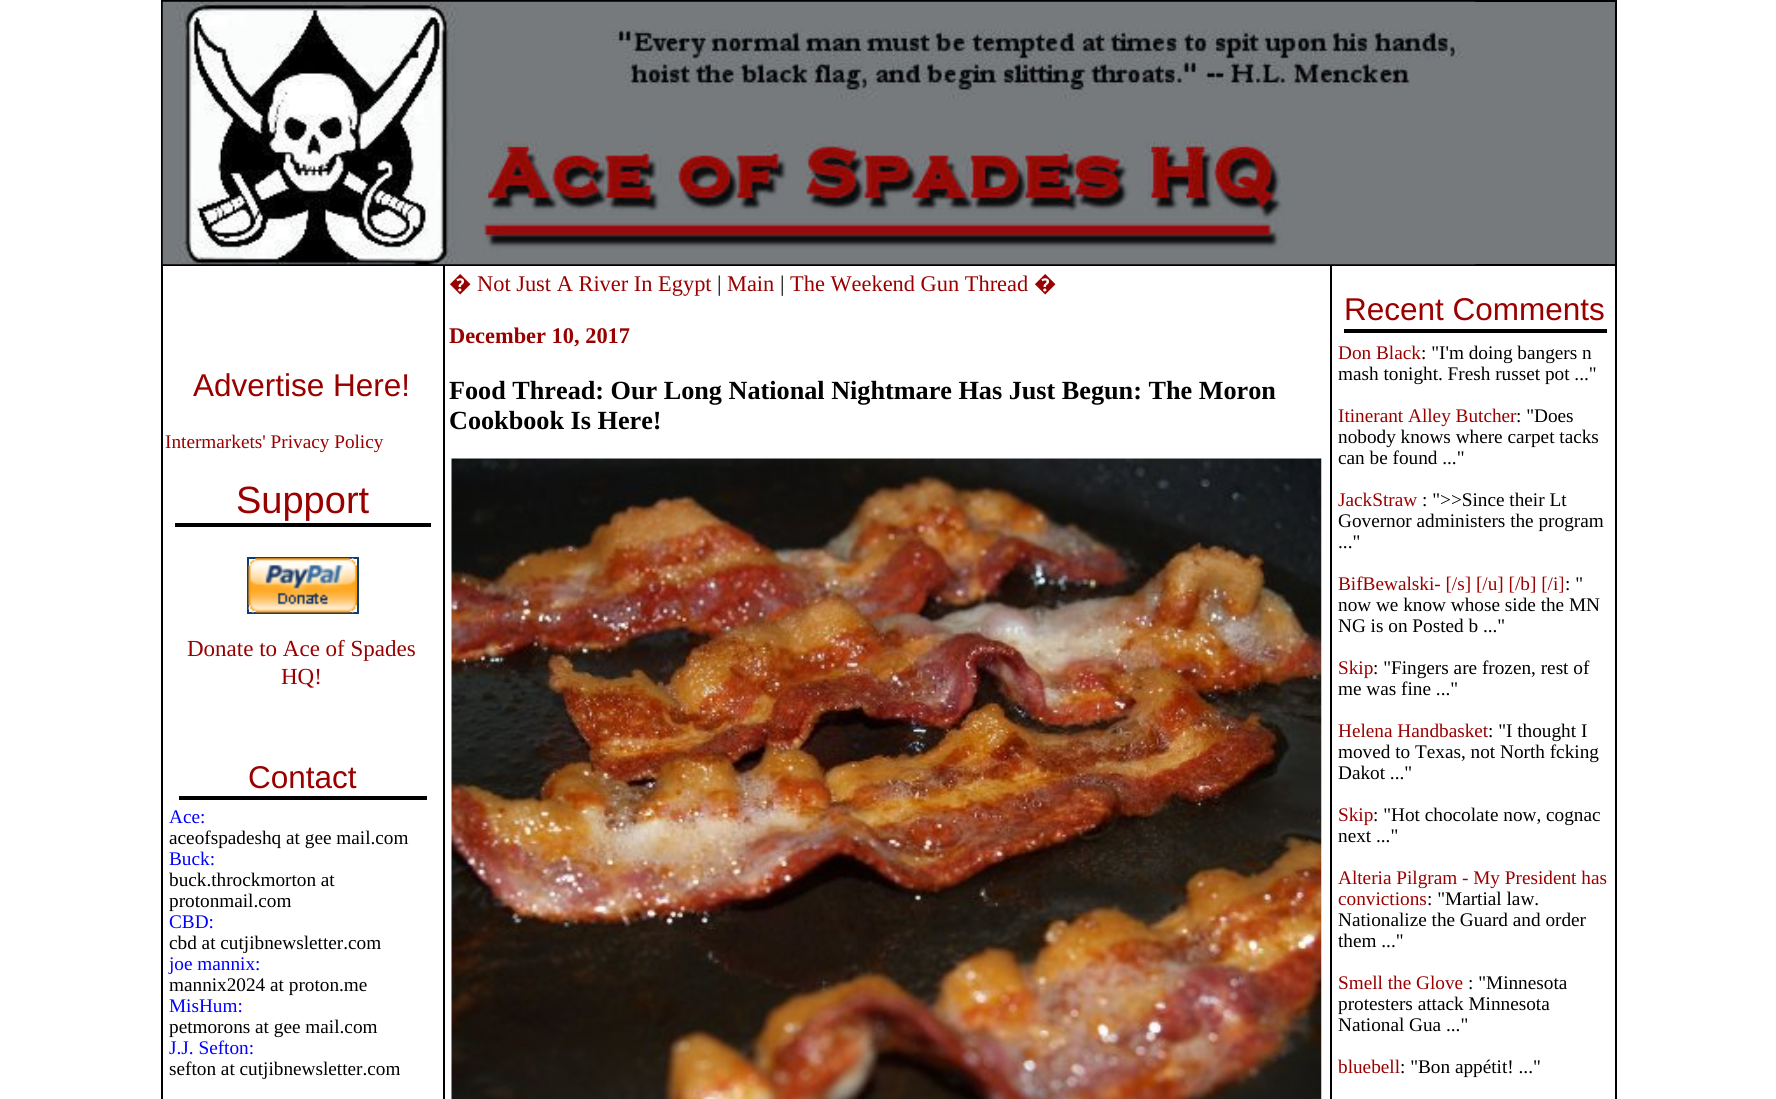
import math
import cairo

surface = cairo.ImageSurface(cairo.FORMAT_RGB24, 1776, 1099)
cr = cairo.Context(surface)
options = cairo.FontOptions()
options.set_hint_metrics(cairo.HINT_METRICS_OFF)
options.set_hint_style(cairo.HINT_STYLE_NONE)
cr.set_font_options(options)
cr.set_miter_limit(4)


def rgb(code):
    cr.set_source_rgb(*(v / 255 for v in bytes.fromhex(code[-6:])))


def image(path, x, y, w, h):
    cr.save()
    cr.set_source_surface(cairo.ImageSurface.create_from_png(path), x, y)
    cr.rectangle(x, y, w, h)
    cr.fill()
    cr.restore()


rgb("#ffffff")
cr.paint()
for x, y, w, h, color in [
    (161, 0, 1456, 2, "#000000"),
    (1615, 0, 2, 1099, "#000000"),
    (161, 0, 2, 1099, "#000000"),
    (1475, 2, 140, 262, "#767a7d"),
    (1330, 264, 287, 2, "#000000"),
    (1330, 264, 2, 835, "#000000"),
    (443, 264, 889, 2, "#000000"),
    (443, 264, 2, 835, "#000000"),
    (161, 264, 284, 2, "#000000"),
]:
    rgb(color)
    cr.rectangle(x, y, w, h)
    cr.fill()
image("img/1.png", 162, 1, 1314, 264)
cr.rectangle(175, 523, 256, 4)
cr.fill()
cr.rectangle(248, 558, 110, 55)
rgb("#0d3f76")
cr.stroke()
image("img/2.png", 248, 558, 109, 55)
rgb("#000000")
cr.rectangle(179, 796, 248, 4)
cr.fill()
image("img/3.png", 451, 458, 871, 641)
cr.rectangle(1344, 329, 263, 4)
cr.fill()
cr.select_font_face("Liberation Sans")
cr.set_font_size(31.5)
rgb("#990000")
cr.move_to(193, 396)
cr.show_text("Advertise Here!")
cr.select_font_face("Liberation Serif")
cr.set_font_size(19.25)
cr.move_to(165, 448)
cr.show_text("Intermarkets' Privacy Policy")
cr.select_font_face("Liberation Sans")
cr.set_font_size(38)
cr.move_to(236, 513)
cr.show_text("Support")
cr.select_font_face("Liberation Serif")
cr.set_font_size(23)
cr.move_to(187, 656)
cr.show_text("Donate to Ace of Spades")
cr.move_to(281, 684)
cr.show_text("HQ!")
cr.select_font_face("Liberation Sans")
cr.set_font_size(31.5)
cr.move_to(248, 788)
cr.show_text("Contact")
cr.select_font_face("Liberation Serif")
cr.set_font_size(19.25)
rgb("#0000ff")
cr.move_to(169, 823)
cr.show_text("Ace:")
rgb("#000000")
cr.move_to(169, 844)
cr.show_text("aceofspadeshq at gee mail.com")
rgb("#0000ff")
cr.move_to(169, 865)
cr.show_text("Buck:")
rgb("#000000")
cr.move_to(169, 886)
cr.show_text("buck.throckmorton at")
cr.move_to(169, 907)
cr.show_text("protonmail.com")
rgb("#0000ff")
cr.move_to(169, 928)
cr.show_text("CBD:")
rgb("#000000")
cr.move_to(169, 949)
cr.show_text("cbd at cutjibnewsletter.com")
rgb("#0000ff")
cr.move_to(169, 970)
cr.show_text("joe mannix:")
rgb("#000000")
cr.move_to(169, 991)
cr.show_text("mannix2024 at proton.me")
rgb("#0000ff")
cr.move_to(169, 1012)
cr.show_text("MisHum:")
rgb("#000000")
cr.move_to(169, 1033)
cr.show_text("petmorons at gee mail.com")
rgb("#0000ff")
cr.move_to(169, 1054)
cr.show_text("J.J. Sefton:")
rgb("#000000")
cr.move_to(169, 1075)
cr.show_text("sefton at cutjibnewsletter.com")
cr.select_font_face("Noto Sans")
cr.set_font_size(22.4)
rgb("#990000")
cr.move_to(449, 291)
cr.show_text("�")
cr.select_font_face("Liberation Serif")
cr.move_to(477, 291)
cr.show_text("Not Just A River In Egypt")
rgb("#000000")
cr.move_to(717, 291)
cr.show_text("|")
rgb("#990000")
cr.move_to(727, 291)
cr.show_text("Main")
rgb("#000000")
cr.move_to(780, 291)
cr.show_text("|")
rgb("#990000")
cr.move_to(790, 291)
cr.show_text("The Weekend Gun Thread")
cr.select_font_face("Noto Sans")
cr.move_to(1034, 291)
cr.show_text("�")
cr.select_font_face("Liberation Serif", cairo.FONT_SLANT_NORMAL, cairo.FONT_WEIGHT_BOLD)
cr.move_to(449, 343)
cr.show_text("December 10, 2017")
cr.set_font_size(26.2)
rgb("#000000")
cr.move_to(449, 399)
cr.show_text("Food Thread: Our Long National Nightmare Has Just Begun: The Moron")
cr.move_to(449, 429)
cr.show_text("Cookbook Is Here!")
cr.select_font_face("Liberation Sans")
cr.set_font_size(31.5)
rgb("#990000")
cr.move_to(1344, 320)
cr.show_text("Recent Comments")
cr.select_font_face("Liberation Serif")
cr.set_font_size(19.25)
cr.move_to(1338, 359)
cr.show_text("Don Black")
rgb("#000000")
cr.move_to(1421, 359)
cr.show_text(": \"I'm doing bangers n")
cr.move_to(1338, 380)
cr.show_text("mash tonight. Fresh russet pot ...\"")
rgb("#990000")
cr.move_to(1338, 422)
cr.show_text("Itinerant Alley Butcher")
rgb("#000000")
for x, y, s in [
    (1516, 422, ": \"Does"),
    (1338, 443, "nobody knows where carpet tacks"),
    (1338, 464, "can be found ...\""),
]:
    cr.move_to(x, y)
    cr.show_text(s)
rgb("#990000")
cr.move_to(1338, 506)
cr.show_text("JackStraw")
rgb("#000000")
for x, y, s in [
    (1422, 506, ": \">>Since their Lt"),
    (1338, 527, "Governor administers the program"),
    (1338, 548, "...\""),
]:
    cr.move_to(x, y)
    cr.show_text(s)
rgb("#990000")
cr.move_to(1338, 590)
cr.show_text("BifBewalski- [/s] [/u] [/b] [/i]")
rgb("#000000")
for x, y, s in [
    (1565, 590, ": \""),
    (1338, 611, "now we know whose side the MN"),
    (1338, 632, "NG is on Posted b ...\""),
]:
    cr.move_to(x, y)
    cr.show_text(s)
rgb("#990000")
cr.move_to(1338, 674)
cr.show_text("Skip")
rgb("#000000")
cr.move_to(1373, 674)
cr.show_text(": \"Fingers are frozen, rest of")
cr.move_to(1338, 695)
cr.show_text("me was fine ...\"")
rgb("#990000")
cr.move_to(1338, 737)
cr.show_text("Helena Handbasket")
rgb("#000000")
for x, y, s in [
    (1488, 737, ": \"I thought I"),
    (1338, 758, "moved to Texas, not North fcking"),
    (1338, 779, "Dakot ...\""),
]:
    cr.move_to(x, y)
    cr.show_text(s)
rgb("#990000")
cr.move_to(1338, 821)
cr.show_text("Skip")
rgb("#000000")
cr.move_to(1373, 821)
cr.show_text(": \"Hot chocolate now, cognac")
cr.move_to(1338, 842)
cr.show_text("next ...\"")
rgb("#990000")
cr.move_to(1338, 884)
cr.show_text("Alteria Pilgram - My President has")
cr.move_to(1338, 905)
cr.show_text("convictions")
rgb("#000000")
for x, y, s in [
    (1427, 905, ": \"Martial law."),
    (1338, 926, "Nationalize the Guard and order"),
    (1338, 947, "them ...\""),
]:
    cr.move_to(x, y)
    cr.show_text(s)
rgb("#990000")
cr.move_to(1338, 989)
cr.show_text("Smell the Glove")
rgb("#000000")
for x, y, s in [
    (1468, 989, ": \"Minnesota"),
    (1338, 1010, "protesters attack Minnesota"),
    (1338, 1031, "National Gua ...\""),
]:
    cr.move_to(x, y)
    cr.show_text(s)
rgb("#990000")
cr.move_to(1338, 1073)
cr.show_text("bluebell")
rgb("#000000")
cr.move_to(1400, 1073)
cr.show_text(": \"Bon appétit! ...\"")
surface.write_to_png("page.png")
